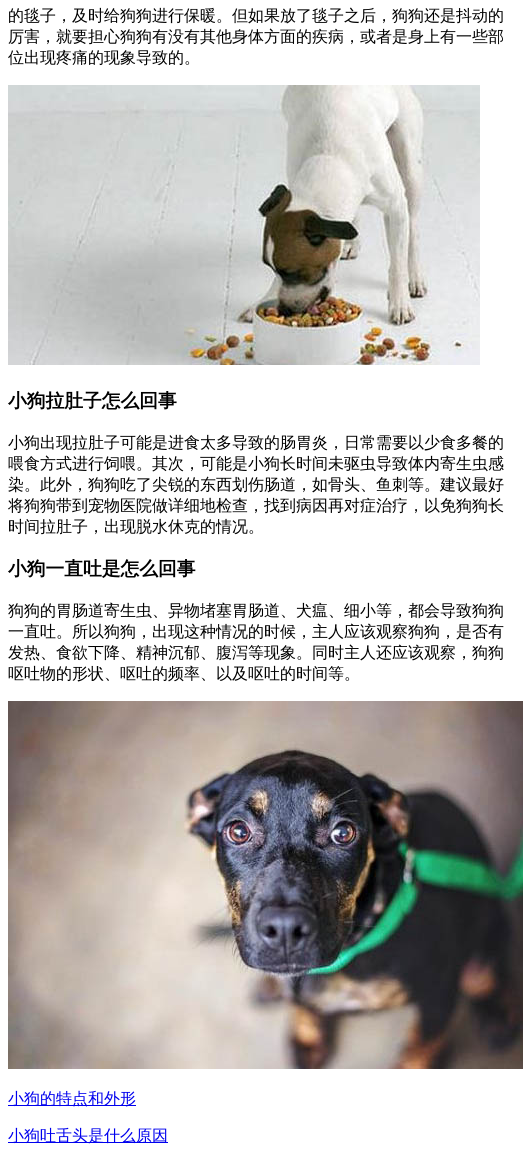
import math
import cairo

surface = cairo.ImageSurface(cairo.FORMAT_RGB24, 523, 1153)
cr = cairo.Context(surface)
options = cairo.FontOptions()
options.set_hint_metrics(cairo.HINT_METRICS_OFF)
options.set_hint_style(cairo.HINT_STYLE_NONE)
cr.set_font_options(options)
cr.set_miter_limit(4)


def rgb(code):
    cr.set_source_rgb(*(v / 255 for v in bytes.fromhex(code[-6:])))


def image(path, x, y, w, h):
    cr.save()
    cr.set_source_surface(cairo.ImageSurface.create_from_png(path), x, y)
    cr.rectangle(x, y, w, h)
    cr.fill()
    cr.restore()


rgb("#ffffff")
cr.paint()
image("img/1.png", 8, 85, 472, 280)
image("img/2.png", 8, 701, 515, 368)
rgb("#0000ee")
cr.rectangle(8, 1105, 128, 1)
cr.fill()
cr.rectangle(8, 1142, 160, 1)
cr.fill()
cr.select_font_face("WenQuanYi Zen Hei Medium")
cr.set_font_size(16)
rgb("#000000")
for x, y, s in [
    (8, 21, "的毯子，及时给狗狗进行保暖。但如果放了毯子之后，狗狗还是抖动的"),
    (8, 42, "厉害，就要担心狗狗有没有其他身体方面的疾病，或者是身上有一些部"),
    (8, 63, "位出现疼痛的现象导致的。"),
]:
    cr.move_to(x, y)
    cr.show_text(s)
cr.select_font_face("WenQuanYi Zen Hei", cairo.FONT_SLANT_NORMAL, cairo.FONT_WEIGHT_BOLD)
cr.set_font_size(18.75)
cr.move_to(8, 407)
cr.show_text("小狗拉肚子怎么回事")
cr.select_font_face("WenQuanYi Zen Hei Medium")
cr.set_font_size(16)
for x, y, s in [
    (8, 448, "小狗出现拉肚子可能是进食太多导致的肠胃炎，日常需要以少食多餐的"),
    (8, 469, "喂食方式进行饲喂。其次，可能是小狗长时间未驱虫导致体内寄生虫感"),
    (8, 490, "染。此外，狗狗吃了尖锐的东西划伤肠道，如骨头、鱼刺等。建议最好"),
    (8, 511, "将狗狗带到宠物医院做详细地检查，找到病因再对症治疗，以免狗狗长"),
    (8, 532, "时间拉肚子，出现脱水休克的情况。"),
]:
    cr.move_to(x, y)
    cr.show_text(s)
cr.select_font_face("WenQuanYi Zen Hei", cairo.FONT_SLANT_NORMAL, cairo.FONT_WEIGHT_BOLD)
cr.set_font_size(18.75)
cr.move_to(8, 575)
cr.show_text("小狗一直吐是怎么回事")
cr.select_font_face("WenQuanYi Zen Hei Medium")
cr.set_font_size(16)
for x, y, s in [
    (8, 616, "狗狗的胃肠道寄生虫、异物堵塞胃肠道、犬瘟、细小等，都会导致狗狗"),
    (8, 637, "一直吐。所以狗狗，出现这种情况的时候，主人应该观察狗狗，是否有"),
    (8, 658, "发热、食欲下降、精神沉郁、腹泻等现象。同时主人还应该观察，狗狗"),
    (8, 679, "呕吐物的形状、呕吐的频率、以及呕吐的时间等。"),
]:
    cr.move_to(x, y)
    cr.show_text(s)
rgb("#0000ee")
cr.move_to(8, 1104)
cr.show_text("小狗的特点和外形")
cr.move_to(8, 1141)
cr.show_text("小狗吐舌头是什么原因")
surface.write_to_png("page.png")
